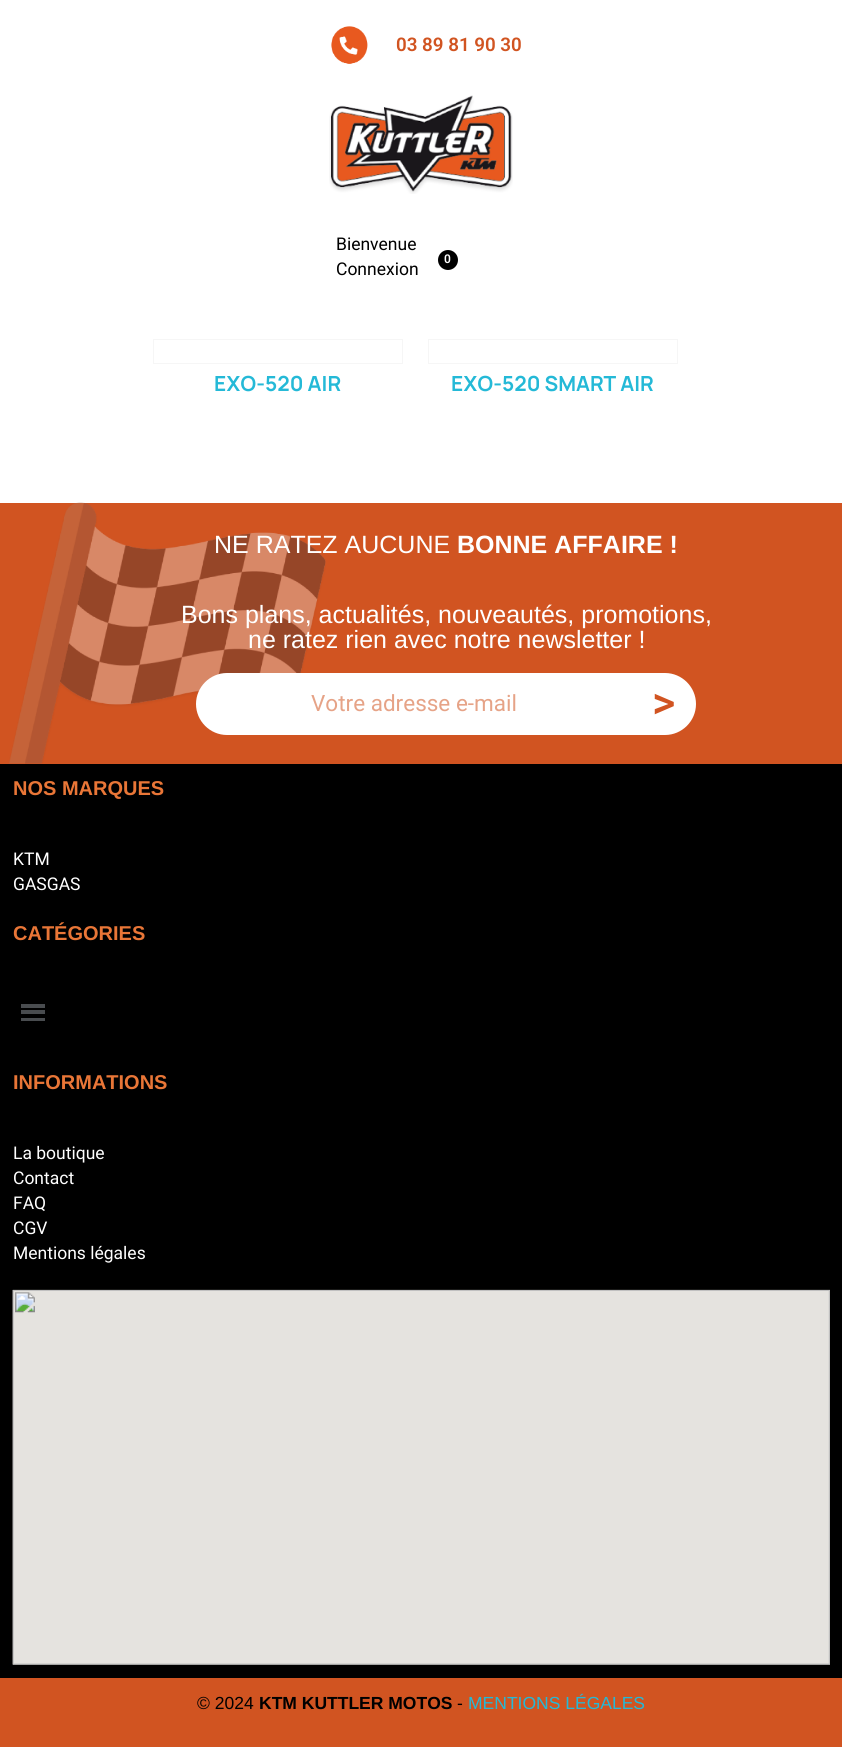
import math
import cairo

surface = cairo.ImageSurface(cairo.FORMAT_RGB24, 842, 1747)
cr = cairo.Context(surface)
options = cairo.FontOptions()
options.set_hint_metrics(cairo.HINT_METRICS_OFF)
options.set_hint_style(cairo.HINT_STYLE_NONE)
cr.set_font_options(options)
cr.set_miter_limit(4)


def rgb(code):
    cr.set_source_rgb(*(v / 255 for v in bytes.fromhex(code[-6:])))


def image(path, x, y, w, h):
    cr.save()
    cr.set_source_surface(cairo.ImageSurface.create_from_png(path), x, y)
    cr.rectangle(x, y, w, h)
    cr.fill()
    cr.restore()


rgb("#ffffff")
cr.paint()
image("img/1.png", 331, 26, 37, 38)
image("img/2.png", 329, 95, 184, 99)
rgb("#000000")
cr.arc(448, 260, 10, 0, 2 * math.pi)
cr.fill()
cr.rectangle(153.5, 339.5, 249, 24)
rgb("#f6f6f6")
cr.set_line_width(1)
cr.stroke()
cr.rectangle(428.5, 339.5, 249, 24)
cr.stroke()
rgb("#d15421")
cr.rectangle(0, 503, 842, 261)
cr.fill()
image("img/3.png", 9, 502, 317, 262)
rgb("#ffffff")
cr.new_path()
cr.move_to(227, 673)
cr.line_to(631, 673)
cr.line_to(631, 735)
cr.line_to(227, 735)
cr.curve_to(210, 735, 196, 721, 196, 704)
cr.curve_to(196, 687, 210, 673, 227, 673)
cr.close_path()
cr.fill()
cr.new_path()
cr.move_to(631, 673)
cr.line_to(665, 673)
cr.curve_to(682, 673, 696, 687, 696, 704)
cr.curve_to(696, 721, 682, 735, 665, 735)
cr.line_to(631, 735)
cr.close_path()
cr.fill()
for x, y, w, h, color in [
    (0, 764, 842, 914, "#000000"),
    (21, 1010, 24, 4, "#494c4f"),
    (21, 1004, 24, 4, "#494c4f"),
    (21, 1018, 24, 3, "#494c4f"),
]:
    rgb(color)
    cr.rectangle(x, y, w, h)
    cr.fill()
image("img/4.png", 12, 1289, 818, 376)
rgb("#d15421")
cr.rectangle(0, 1678, 842, 69)
cr.fill()
cr.select_font_face("Roboto SemiBold")
cr.set_font_size(18.75)
cr.move_to(396, 51)
cr.show_text("03 89 81 90 30")
cr.select_font_face("Roboto")
cr.set_font_size(17.5)
rgb("#000000")
cr.move_to(336, 250)
cr.show_text("Bienvenue")
cr.move_to(336, 275)
cr.show_text("Connexion")
cr.select_font_face("Roboto SemiBold")
cr.set_font_size(12)
rgb("#ffffff")
cr.move_to(444, 263)
cr.show_text("0")
cr.select_font_face("Manrope", cairo.FONT_SLANT_NORMAL, cairo.FONT_WEIGHT_BOLD)
cr.set_font_size(20)
rgb("#24b9d7")
cr.move_to(214, 391)
cr.show_text("EXO-520 AIR")
cr.move_to(451, 391)
cr.show_text("EXO-520 SMART AIR")
cr.select_font_face("Liberation Sans")
cr.set_font_size(25)
rgb("#ffffff")
cr.move_to(214, 553)
cr.show_text("NE RATEZ AUCUNE")
cr.select_font_face("Liberation Sans", cairo.FONT_SLANT_NORMAL, cairo.FONT_WEIGHT_BOLD)
cr.move_to(457, 553)
cr.show_text("BONNE AFFAIRE !")
cr.select_font_face("Liberation Sans")
cr.move_to(181, 623)
cr.show_text("Bons plans, actualités, nouveautés, promotions,")
cr.move_to(248, 648)
cr.show_text("ne ratez rien avec notre newsletter !")
cr.select_font_face("Roboto")
cr.set_font_size(22.5)
rgb("#e6a387")
cr.move_to(311, 711)
cr.show_text("Votre adresse e-mail")
cr.select_font_face("Roboto Medium")
cr.set_font_size(45)
rgb("#d15421")
cr.move_to(652, 718)
cr.show_text(">")
cr.select_font_face("Liberation Sans", cairo.FONT_SLANT_NORMAL, cairo.FONT_WEIGHT_BOLD)
cr.set_font_size(20)
rgb("#e97637")
cr.move_to(13, 795)
cr.show_text("NOS MARQUES")
cr.select_font_face("Roboto")
cr.set_font_size(17.5)
rgb("#ffffff")
cr.move_to(13, 865)
cr.show_text("KTM")
cr.move_to(13, 890)
cr.show_text("GASGAS")
cr.select_font_face("Liberation Sans", cairo.FONT_SLANT_NORMAL, cairo.FONT_WEIGHT_BOLD)
cr.set_font_size(20)
rgb("#e97637")
cr.move_to(13, 940)
cr.show_text("CATÉGORIES")
cr.move_to(13, 1089)
cr.show_text("INFORMATIONS")
cr.select_font_face("Roboto")
cr.set_font_size(17.5)
rgb("#ffffff")
for x, y, s in [
    (13, 1159, "La boutique"),
    (13, 1184, "Contact"),
    (13, 1209, "FAQ"),
    (13, 1234, "CGV"),
    (13, 1259, "Mentions légales"),
]:
    cr.move_to(x, y)
    cr.show_text(s)
cr.select_font_face("Liberation Sans")
rgb("#000000")
cr.move_to(197, 1709)
cr.show_text("© 2024")
cr.select_font_face("Liberation Sans", cairo.FONT_SLANT_NORMAL, cairo.FONT_WEIGHT_BOLD)
cr.move_to(259, 1709)
cr.show_text("KTM KUTTLER MOTOS")
cr.select_font_face("Liberation Sans")
cr.move_to(457, 1709)
cr.show_text("-")
rgb("#24b9d7")
cr.move_to(468, 1709)
cr.show_text("MENTIONS LÉGALES")
surface.write_to_png("page.png")
